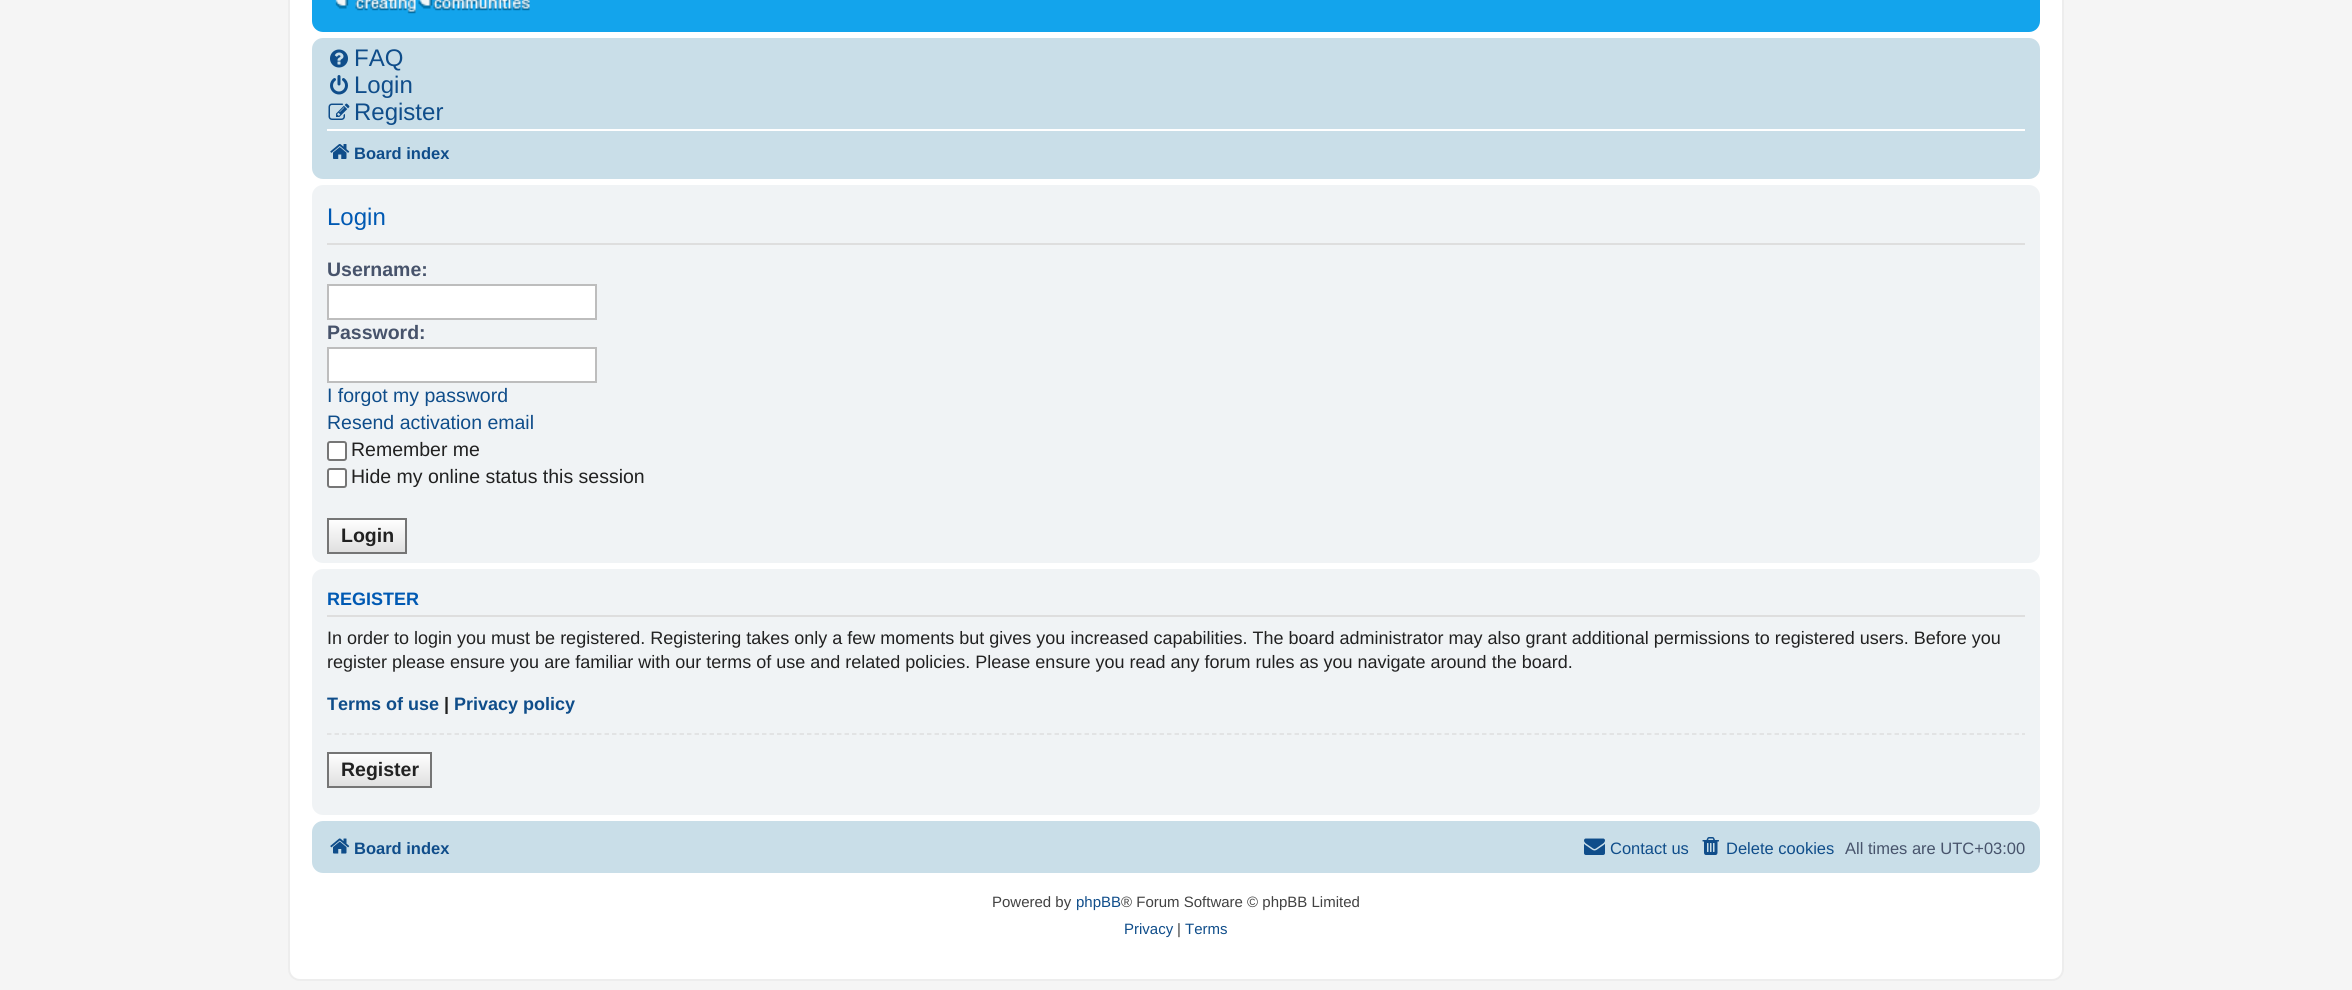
import math
import cairo

surface = cairo.ImageSurface(cairo.FORMAT_RGB24, 2352, 990)
cr = cairo.Context(surface)
options = cairo.FontOptions()
options.set_hint_metrics(cairo.HINT_METRICS_OFF)
options.set_hint_style(cairo.HINT_STYLE_NONE)
cr.set_font_options(options)
cr.set_miter_limit(4)


def rgb(code):
    cr.set_source_rgb(*(v / 255 for v in bytes.fromhex(code[-6:])))


def rrect(x, y, w, h, r):
    cr.new_sub_path()
    for i, (u, v) in enumerate([(x + w - r, y + h - r), (x + r, y + h - r), (x + r, y + r), (x + w - r, y + r)]):
        cr.arc(u, v, r, i * math.pi / 2, (i + 1) * math.pi / 2)
    cr.close_path()


def image(path, x, y, w, h):
    cr.save()
    cr.set_source_surface(cairo.ImageSurface.create_from_png(path), x, y)
    cr.rectangle(x, y, w, h)
    cr.fill()
    cr.restore()


rgb("#f5f5f5")
cr.paint()
rgb("#ffffff")
rrect(289, -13, 1774, 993, 11)
cr.fill_preserve()
rgb("#ededed")
cr.stroke()
gradient = cairo.LinearGradient(1176, -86, 1176, 32)
gradient.add_color_stop_rgba(0, 0.502, 0.835, 1, 1)
gradient.add_color_stop_rgba(0, 0, 0.467, 0.702, 1)
gradient.add_color_stop_rgba(0.3, 0.075, 0.643, 0.925, 1)
gradient.add_color_stop_rgba(1, 0.075, 0.643, 0.925, 1)
cr.set_source(gradient)
rrect(312, -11, 1728, 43, 11)
cr.fill()
image("img/1.png", 335, 0, 195, 14)
rgb("#c9dee8")
rrect(312, 38, 1728, 141, 11)
cr.fill()
image("img/2.png", 330, 49, 18, 19)
image("img/3.png", 330, 75, 18, 20)
image("img/4.png", 328, 103, 22, 17)
rgb("#ffffff")
cr.rectangle(327, 129, 1698, 2)
cr.fill()
image("img/5.png", 330, 144, 20, 15)
rgb("#f0f3f5")
rrect(312, 185, 1728, 378, 11)
cr.fill()
rgb("#dedede")
cr.rectangle(327, 243, 1698, 2)
cr.fill()
rgb("#ffffff")
cr.rectangle(328, 285, 268, 34)
cr.fill_preserve()
rgb("#bdbdbd")
cr.stroke()
rgb("#ffffff")
cr.rectangle(328, 348, 268, 34)
cr.fill_preserve()
rgb("#bdbdbd")
cr.stroke()
rgb("#ffffff")
rrect(328, 442, 18, 18, 2)
cr.fill_preserve()
rgb("#767676")
cr.stroke()
rgb("#ffffff")
rrect(328, 469, 18, 18, 2)
cr.fill_preserve()
rgb("#767676")
cr.stroke()
gradient = cairo.LinearGradient(367, 519, 367, 552)
gradient.add_color_stop_rgba(0, 1, 1, 1, 1)
gradient.add_color_stop_rgba(1, 0.878, 0.878, 0.878, 1)
cr.set_source(gradient)
cr.rectangle(329, 520, 76, 32)
cr.fill()
cr.rectangle(328, 519, 78, 34)
rgb("#757575")
cr.stroke()
rgb("#f0f3f5")
rrect(312, 569, 1728, 246, 11)
cr.fill()
rgb("#dedede")
cr.rectangle(327, 615, 1698, 2)
cr.fill()
cr.new_path()
cr.move_to(327, 734)
cr.line_to(2025, 734)
cr.set_line_width(1.5)
cr.set_dash([4.5, 3])
cr.stroke()
gradient = cairo.LinearGradient(380, 753, 380, 786)
gradient.add_color_stop_rgba(0, 1, 1, 1, 1)
gradient.add_color_stop_rgba(1, 0.878, 0.878, 0.878, 1)
cr.set_source(gradient)
cr.rectangle(329, 754, 101, 32)
cr.fill()
cr.rectangle(328, 753, 103, 34)
rgb("#757575")
cr.set_line_width(2)
cr.set_dash([])
cr.stroke()
rgb("#c9dee8")
rrect(312, 821, 1728, 52, 11)
cr.fill()
image("img/6.png", 330, 838, 20, 16)
image("img/7.png", 1584, 838, 21, 17)
image("img/8.png", 1702, 837, 17, 18)
cr.select_font_face("Liberation Sans")
cr.set_font_size(24)
rgb("#0f4d8a")
for x, y, s in [
    (354, 66, "FAQ"),
    (354, 93, "Login"),
    (354, 120, "Register"),
]:
    cr.move_to(x, y)
    cr.show_text(s)
cr.select_font_face("Liberation Sans", cairo.FONT_SLANT_NORMAL, cairo.FONT_WEIGHT_BOLD)
cr.set_font_size(16.5)
cr.move_to(354, 159)
cr.show_text("Board index")
cr.select_font_face("Liberation Sans")
cr.set_font_size(24)
rgb("#0059b3")
cr.move_to(327, 225)
cr.show_text("Login")
cr.select_font_face("Liberation Sans", cairo.FONT_SLANT_NORMAL, cairo.FONT_WEIGHT_BOLD)
cr.set_font_size(19.5)
rgb("#47536b")
cr.move_to(327, 276)
cr.show_text("Username:")
cr.move_to(327, 339)
cr.show_text("Password:")
cr.select_font_face("Liberation Sans")
rgb("#0f4d8a")
cr.move_to(327, 402)
cr.show_text("I forgot my password")
cr.move_to(327, 429)
cr.show_text("Resend activation email")
rgb("#212121")
cr.move_to(351, 456)
cr.show_text("Remember me")
cr.move_to(351, 483)
cr.show_text("Hide my online status this session")
cr.select_font_face("Liberation Sans", cairo.FONT_SLANT_NORMAL, cairo.FONT_WEIGHT_BOLD)
cr.move_to(341, 542)
cr.show_text("Login")
cr.set_font_size(18)
rgb("#0059b3")
cr.move_to(327, 605)
cr.show_text("REGISTER")
cr.select_font_face("Liberation Sans")
rgb("#212121")
cr.move_to(327, 644)
cr.show_text("In order to login you must be registered. Registering takes only a few moments but gives you increased capabilities. The board administrator may also grant additional permissions to registered users. Before you")
cr.move_to(327, 668)
cr.show_text("register please ensure you are familiar with our terms of use and related policies. Please ensure you read any forum rules as you navigate around the board.")
cr.select_font_face("Liberation Sans", cairo.FONT_SLANT_NORMAL, cairo.FONT_WEIGHT_BOLD)
rgb("#0f4d8a")
cr.move_to(327, 710)
cr.show_text("Terms of use")
rgb("#212121")
cr.move_to(444, 710)
cr.show_text("|")
rgb("#0f4d8a")
cr.move_to(454, 710)
cr.show_text("Privacy policy")
cr.set_font_size(19.5)
rgb("#212121")
cr.move_to(341, 776)
cr.show_text("Register")
cr.set_font_size(16.5)
rgb("#0f4d8a")
cr.move_to(354, 854)
cr.show_text("Board index")
cr.select_font_face("Liberation Sans")
cr.move_to(1610, 854)
cr.show_text("Contact us")
cr.move_to(1726, 854)
cr.show_text("Delete cookies")
rgb("#47536b")
cr.move_to(1845, 854)
cr.show_text("All times are UTC+03:00")
cr.set_font_size(15)
rgb("#424242")
cr.move_to(992, 907)
cr.show_text("Powered by")
rgb("#0f4d8a")
cr.move_to(1076, 907)
cr.show_text("phpBB")
rgb("#424242")
cr.move_to(1121, 907)
cr.show_text("® Forum Software © phpBB Limited")
rgb("#0f4d8a")
cr.move_to(1124, 934)
cr.show_text("Privacy")
rgb("#424242")
cr.move_to(1177, 934)
cr.show_text("|")
rgb("#0f4d8a")
cr.move_to(1185, 934)
cr.show_text("Terms")
surface.write_to_png("page.png")
